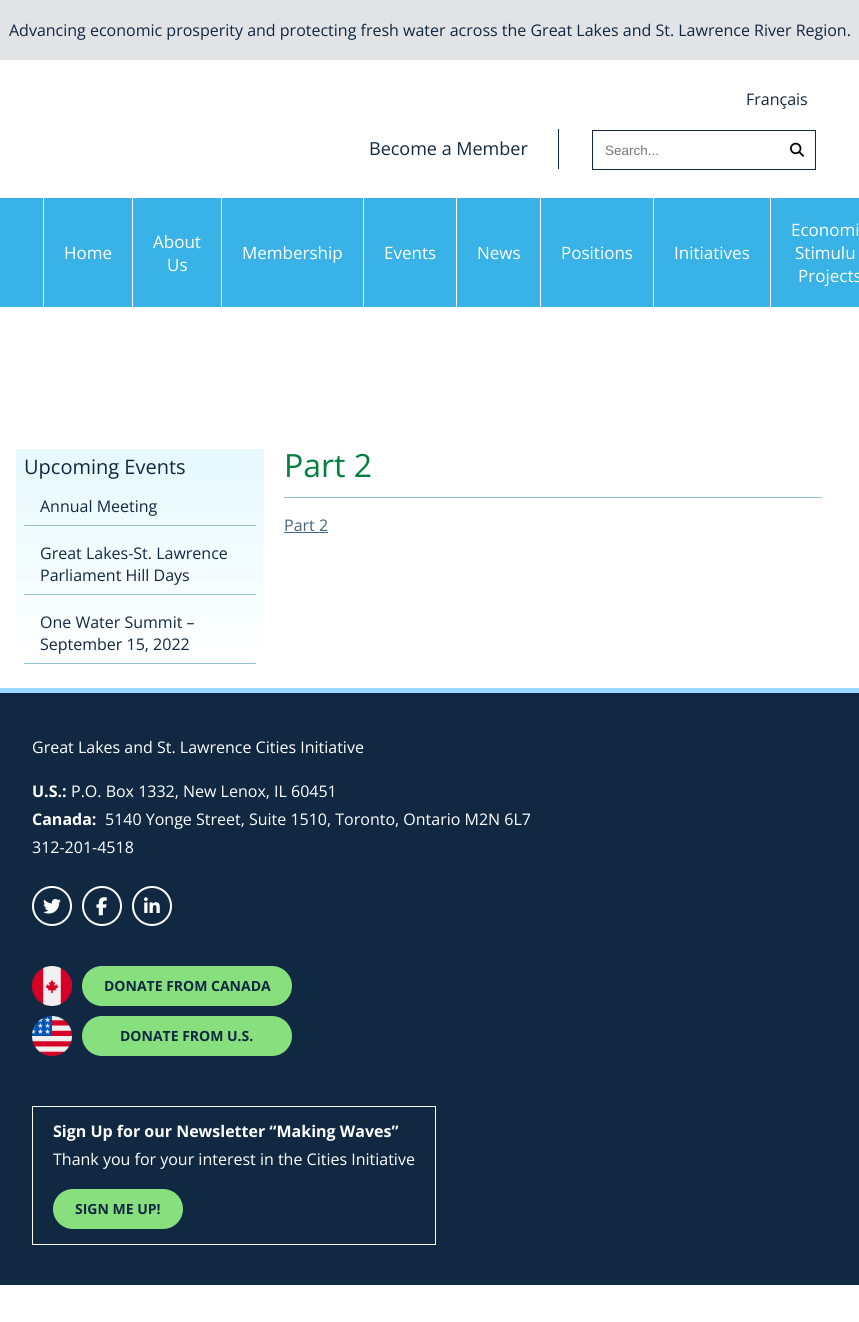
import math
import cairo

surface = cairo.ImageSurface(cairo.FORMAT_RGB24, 859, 1322)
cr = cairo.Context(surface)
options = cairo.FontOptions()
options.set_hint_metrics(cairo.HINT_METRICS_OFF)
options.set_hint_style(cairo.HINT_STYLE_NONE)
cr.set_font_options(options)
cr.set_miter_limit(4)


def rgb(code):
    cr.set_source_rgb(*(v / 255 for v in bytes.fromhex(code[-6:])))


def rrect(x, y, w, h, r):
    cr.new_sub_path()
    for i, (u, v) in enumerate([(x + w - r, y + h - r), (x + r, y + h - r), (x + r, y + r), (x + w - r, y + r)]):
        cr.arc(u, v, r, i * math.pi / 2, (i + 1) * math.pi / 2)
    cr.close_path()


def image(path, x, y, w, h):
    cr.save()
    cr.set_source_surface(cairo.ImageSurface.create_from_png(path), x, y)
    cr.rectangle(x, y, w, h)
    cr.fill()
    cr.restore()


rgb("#ffffff")
cr.paint()
rgb("#e2e3e4")
cr.rectangle(0, 0, 859, 60)
cr.fill()
rgb("#102841")
cr.rectangle(558, 129, 1, 40)
cr.fill()
cr.rectangle(592.5, 130.5, 223, 39)
cr.set_line_width(1)
cr.stroke()
image("img/1.png", 790, 142, 14, 15)
for x, y, w, h, color in [
    (0, 198, 859, 109, "#39b3e7"),
    (132, 198, 1, 109, "#ffffff"),
    (43, 198, 1, 109, "#ffffff"),
    (221, 198, 1, 109, "#ffffff"),
    (363, 198, 1, 109, "#ffffff"),
    (456, 198, 1, 109, "#ffffff"),
    (540, 198, 1, 109, "#ffffff"),
    (653, 198, 1, 109, "#ffffff"),
    (770, 198, 1, 109, "#ffffff"),
]:
    rgb(color)
    cr.rectangle(x, y, w, h)
    cr.fill()
gradient = cairo.LinearGradient(140, 449, 140, 672)
gradient.add_color_stop_rgba(0, 0.902, 0.976, 1, 1)
gradient.add_color_stop_rgba(1, 1, 1, 1, 1)
cr.set_source(gradient)
cr.rectangle(16, 449, 248, 201)
cr.fill()
for x, y, w, h, color in [
    (24, 525, 232, 1, "#95c1ce"),
    (24, 594, 232, 1, "#95c1ce"),
    (24, 663, 232, 1, "#95c1ce"),
    (284, 497, 538, 1, "#95c1ce"),
    (284, 532, 44, 1, "#44657c"),
    (0, 693, 859, 592, "#102841"),
    (0, 688, 859, 5, "#9ad8ff"),
]:
    rgb(color)
    cr.rectangle(x, y, w, h)
    cr.fill()
cr.arc(52, 906, 19, 0, 2 * math.pi)
rgb("#ffffff")
cr.set_line_width(2)
cr.stroke()
image("img/2.png", 43, 899, 18, 15)
cr.arc(102, 906, 19, 0, 2 * math.pi)
cr.stroke()
image("img/3.png", 96, 897, 11, 19)
cr.arc(152, 906, 19, 0, 2 * math.pi)
cr.stroke()
image("img/4.png", 144, 897, 16, 16)
image("img/5.png", 32, 966, 40, 40)
rgb("#87df7e")
rrect(83, 967, 208, 38, 19)
cr.fill_preserve()
cr.stroke()
image("img/6.png", 32, 1016, 40, 40)
rrect(83, 1017, 208, 38, 19)
cr.fill_preserve()
cr.stroke()
cr.rectangle(32.5, 1106.5, 403, 138)
rgb("#ffffff")
cr.set_line_width(1)
cr.stroke()
rgb("#87df7e")
rrect(54, 1190, 128, 38, 19)
cr.fill_preserve()
cr.set_line_width(2)
cr.stroke()
cr.select_font_face("Open Sans")
cr.set_font_size(16)
rgb("#102841")
cr.move_to(9, 36)
cr.show_text("Advancing economic prosperity and protecting fresh water across the Great Lakes and St. Lawrence River Region.")
cr.move_to(746, 105)
cr.show_text("Français")
cr.set_font_size(18)
cr.move_to(369, 155)
cr.show_text("Become a Member")
cr.select_font_face("Liberation Sans")
cr.set_font_size(13.5)
rgb("#757575")
cr.move_to(605, 155)
cr.show_text("Search...")
cr.select_font_face("Open Sans")
cr.set_font_size(17)
rgb("#ffffff")
for x, y, s in [
    (64, 259, "Home"),
    (153, 248, "About"),
    (167, 271, "Us"),
    (242, 259, "Membership"),
    (384, 259, "Events"),
    (477, 259, "News"),
    (561, 259, "Positions"),
    (674, 259, "Initiatives"),
    (791, 236, "Economi"),
    (795, 259, "Stimulu"),
    (798, 282, "Projects"),
]:
    cr.move_to(x, y)
    cr.show_text(s)
cr.set_font_size(20)
rgb("#102841")
cr.move_to(24, 474)
cr.show_text("Upcoming Events")
cr.set_font_size(16)
for x, y, s in [
    (40, 512, "Annual Meeting"),
    (40, 559, "Great Lakes-St. Lawrence"),
    (40, 581, "Parliament Hill Days"),
    (40, 628, "One Water Summit –"),
    (40, 650, "September 15, 2022"),
]:
    cr.move_to(x, y)
    cr.show_text(s)
cr.set_font_size(32)
rgb("#00803f")
cr.move_to(284, 477)
cr.show_text("Part 2")
cr.set_font_size(16)
rgb("#44657c")
cr.move_to(284, 531)
cr.show_text("Part 2")
rgb("#ffffff")
cr.move_to(32, 753)
cr.show_text("Great Lakes and St. Lawrence Cities Initiative")
cr.select_font_face("Open Sans", cairo.FONT_SLANT_NORMAL, cairo.FONT_WEIGHT_BOLD)
cr.move_to(32, 797)
cr.show_text("U.S.:")
cr.select_font_face("Open Sans")
cr.move_to(71, 797)
cr.show_text("P.O. Box 1332, New Lenox, IL 60451")
cr.select_font_face("Open Sans", cairo.FONT_SLANT_NORMAL, cairo.FONT_WEIGHT_BOLD)
cr.move_to(32, 825)
cr.show_text("Canada:")
cr.select_font_face("Open Sans")
cr.move_to(105, 825)
cr.show_text("5140 Yonge Street, Suite 1510, Toronto, Ontario M2N 6L7")
cr.move_to(32, 853)
cr.show_text("312-201-4518")
cr.select_font_face("Open Sans", cairo.FONT_SLANT_NORMAL, cairo.FONT_WEIGHT_BOLD)
cr.set_font_size(14)
rgb("#102841")
cr.move_to(104, 991)
cr.show_text("DONATE FROM CANADA")
cr.move_to(120, 1041)
cr.show_text("DONATE FROM U.S.")
cr.set_font_size(16)
rgb("#ffffff")
cr.move_to(53, 1137)
cr.show_text("Sign Up for our Newsletter “Making Waves”")
cr.select_font_face("Open Sans")
cr.move_to(53, 1165)
cr.show_text("Thank you for your interest in the Cities Initiative")
cr.select_font_face("Open Sans", cairo.FONT_SLANT_NORMAL, cairo.FONT_WEIGHT_BOLD)
cr.set_font_size(14)
rgb("#102841")
cr.move_to(75, 1214)
cr.show_text("SIGN ME UP!")
surface.write_to_png("page.png")
